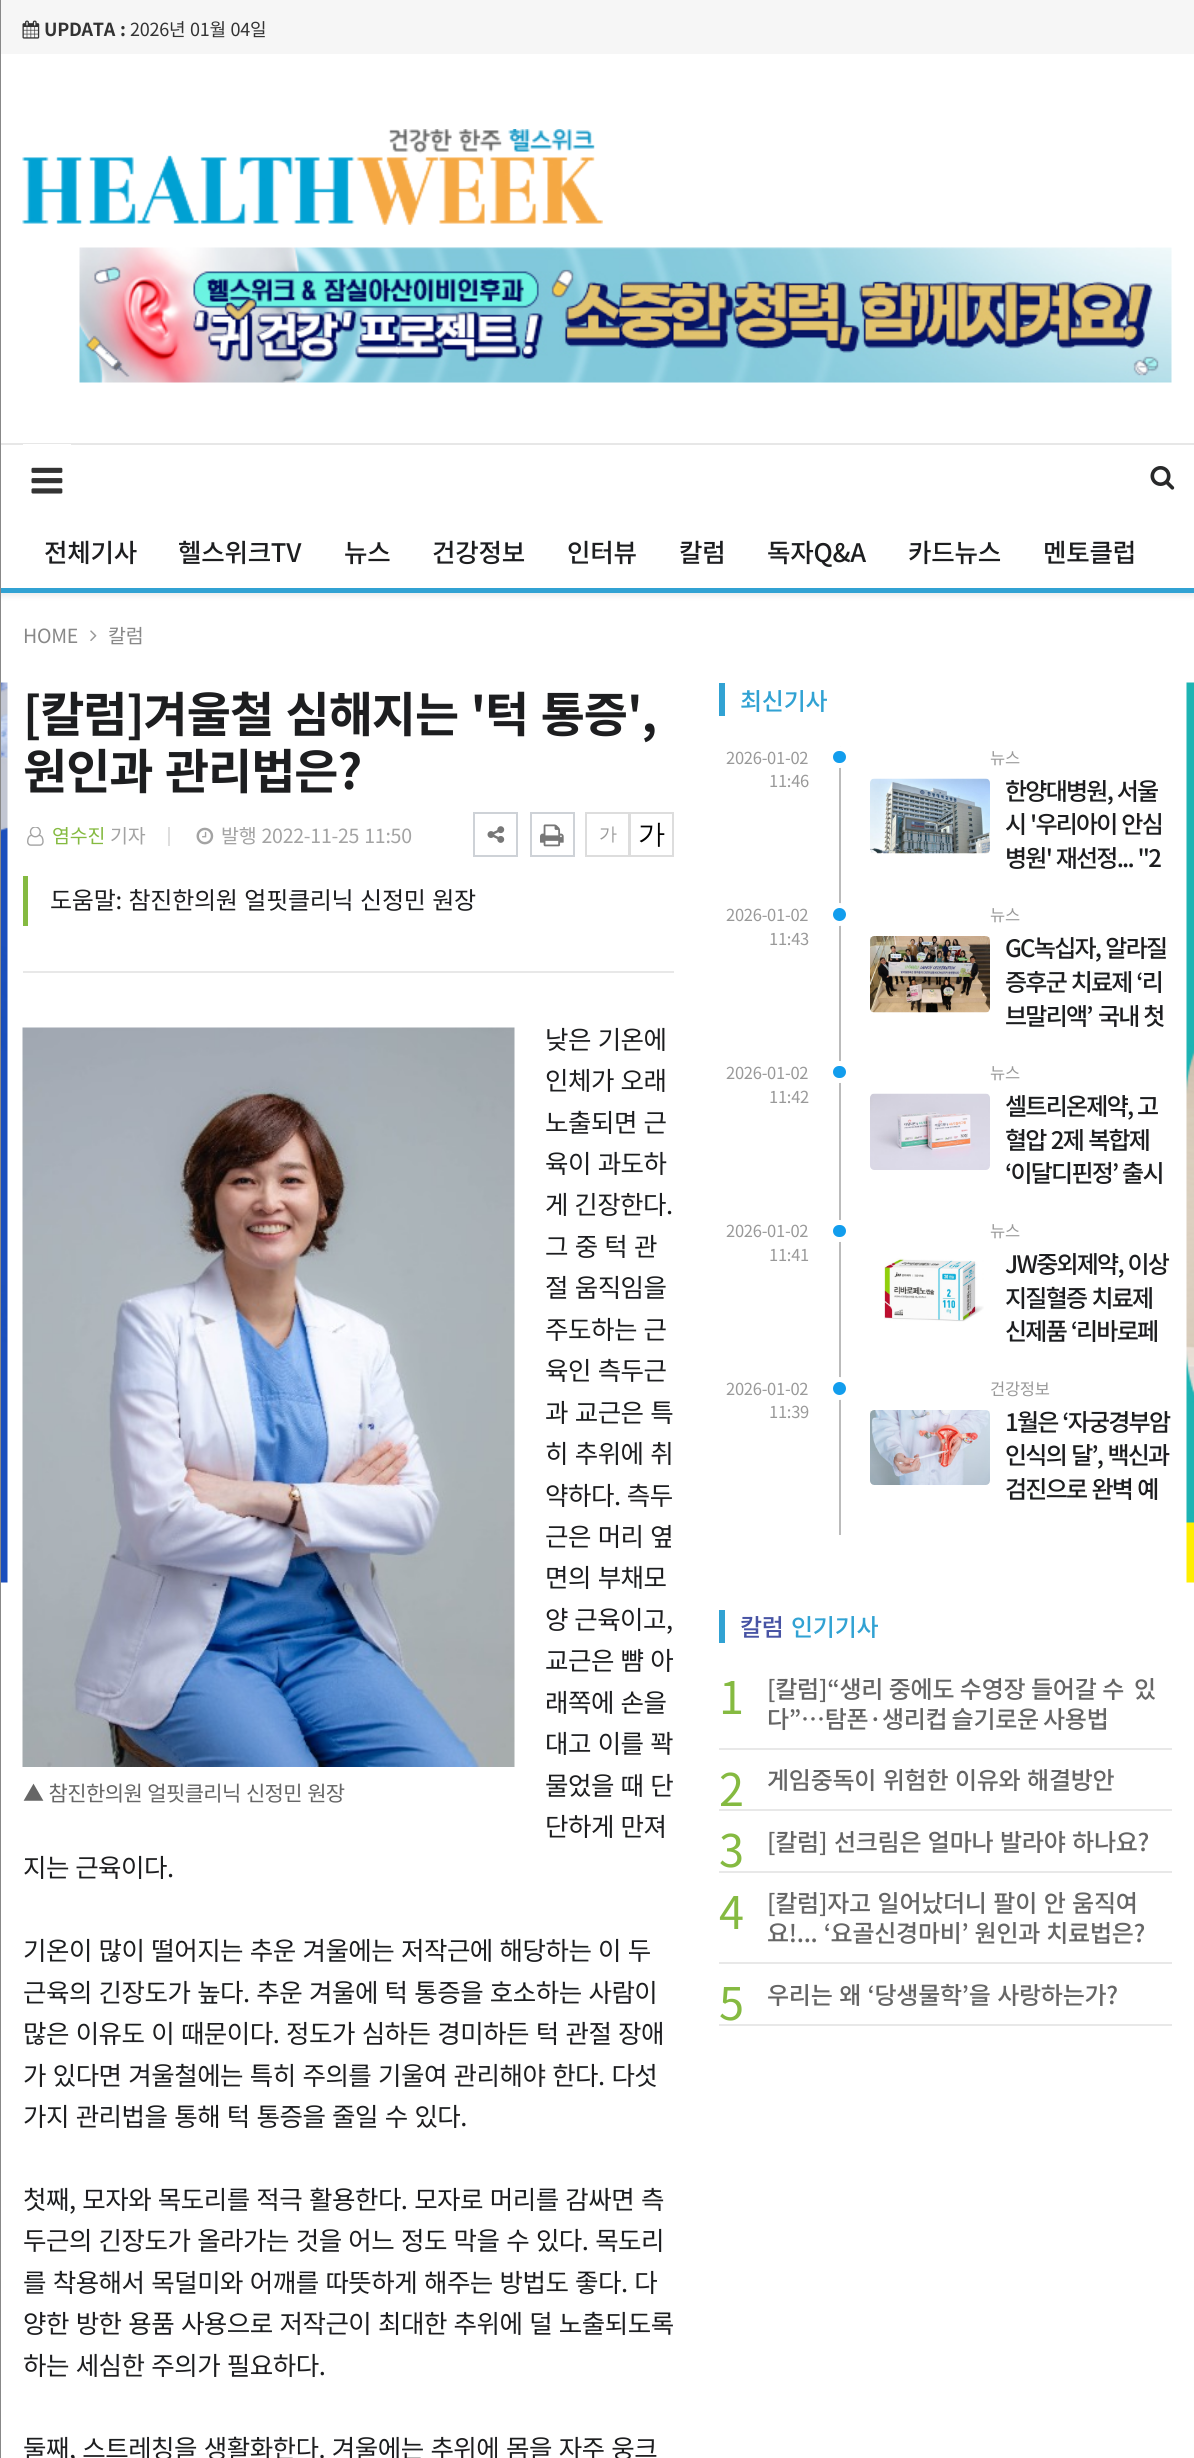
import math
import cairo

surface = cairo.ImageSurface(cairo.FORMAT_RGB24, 1194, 2458)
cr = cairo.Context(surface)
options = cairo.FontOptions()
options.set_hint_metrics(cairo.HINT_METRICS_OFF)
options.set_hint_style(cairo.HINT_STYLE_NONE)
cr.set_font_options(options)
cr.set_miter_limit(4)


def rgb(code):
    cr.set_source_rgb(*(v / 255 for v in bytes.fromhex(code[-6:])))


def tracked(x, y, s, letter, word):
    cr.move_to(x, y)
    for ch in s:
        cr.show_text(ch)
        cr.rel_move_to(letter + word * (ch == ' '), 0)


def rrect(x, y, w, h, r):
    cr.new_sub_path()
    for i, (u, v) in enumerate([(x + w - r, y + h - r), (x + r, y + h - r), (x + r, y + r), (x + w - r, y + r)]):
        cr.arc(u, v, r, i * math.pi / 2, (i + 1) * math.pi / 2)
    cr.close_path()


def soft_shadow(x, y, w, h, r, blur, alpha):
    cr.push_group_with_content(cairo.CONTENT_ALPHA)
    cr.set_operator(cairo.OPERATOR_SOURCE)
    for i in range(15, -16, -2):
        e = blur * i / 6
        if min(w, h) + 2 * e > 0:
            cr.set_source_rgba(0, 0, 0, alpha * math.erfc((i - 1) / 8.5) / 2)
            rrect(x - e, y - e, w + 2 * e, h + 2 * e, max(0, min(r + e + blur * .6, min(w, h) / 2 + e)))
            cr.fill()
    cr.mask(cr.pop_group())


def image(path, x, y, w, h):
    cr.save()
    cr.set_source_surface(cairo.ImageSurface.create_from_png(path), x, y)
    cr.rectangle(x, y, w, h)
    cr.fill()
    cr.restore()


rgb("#ffffff")
cr.paint()
rgb("#000000")
soft_shadow(0, 3, 1194, 593, 0, 3, 0.08)
for x, y, w, h, color in [
    (0, 588, 1194, 5, "#31a2d3"),
    (1, 54, 1193, 534, "#ffffff"),
    (0, 443, 1194, 2, "#e7e7e7"),
    (0, 0, 1, 2458, "#888888"),
    (1, 0, 1193, 54, "#f6f6f6"),
]:
    rgb(color)
    cr.rectangle(x, y, w, h)
    cr.fill()
image("img/1.png", 22, 20, 18, 19)
image("img/2.png", 22, 129, 581, 96)
image("img/3.png", 79, 247, 1093, 136)
rgb("#ffffff")
cr.rectangle(23, 444, 48, 1)
cr.fill()
image("img/4.png", 31, 467, 32, 27)
image("img/5.png", 1150, 466, 25, 24)
image("img/6.png", 90, 630, 7, 11)
image("img/7.png", 1, 682, 7, 901)
rgb("#dedede")
cr.rectangle(168, 827, 2, 19)
cr.fill()
image("img/8.png", 27, 827, 17, 19)
image("img/9.png", 196, 827, 18, 18)
cr.rectangle(474, 813, 43, 43)
rgb("#ced2d7")
cr.stroke()
image("img/10.png", 487, 826, 18, 17)
cr.rectangle(531, 813, 43, 43)
cr.stroke()
image("img/11.png", 540, 824, 24, 23)
cr.rectangle(586, 813, 43, 43)
rgb("#dddddd")
cr.stroke()
cr.rectangle(630, 813, 43, 43)
cr.stroke()
rgb("#85ba41")
cr.rectangle(23, 876, 5, 50)
cr.fill()
rgb("#e8e8e8")
cr.rectangle(23, 971, 651, 2)
cr.fill()
image("img/12.png", 22, 1027, 493, 740)
rgb("#31a2d3")
cr.rectangle(719, 683, 6, 33)
cr.fill()
rgb("#bbbbbb")
cr.rectangle(839, 746, 2, 789)
cr.fill()
rgb("#129ded")
rrect(830.5, 748.5, 18, 17, 8.5)
cr.fill_preserve()
rgb("#ffffff")
cr.set_line_width(5)
cr.stroke()
image("img/13.png", 870, 778, 120, 76)
rgb("#129ded")
cr.arc(839.5, 914.5, 9, 0, 2 * math.pi)
cr.fill_preserve()
rgb("#ffffff")
cr.stroke()
image("img/14.png", 870, 936, 120, 77)
rgb("#129ded")
rrect(830.5, 1063.5, 18, 17, 8.5)
cr.fill_preserve()
rgb("#ffffff")
cr.stroke()
image("img/15.png", 870, 1093, 120, 77)
rgb("#129ded")
rrect(830.5, 1222.5, 18, 17, 8.5)
cr.fill_preserve()
rgb("#ffffff")
cr.stroke()
image("img/16.png", 884, 1258, 100, 64)
rgb("#129ded")
cr.arc(839.5, 1388.5, 9, 0, 2 * math.pi)
cr.fill_preserve()
rgb("#ffffff")
cr.stroke()
image("img/17.png", 870, 1410, 120, 75)
for x, y, w, h, color in [
    (719, 1610, 6, 33, "#31a2d3"),
    (719, 1748, 453, 2, "#e8e8e8"),
    (719, 1809, 453, 2, "#e8e8e8"),
    (719, 1871, 453, 2, "#e8e8e8"),
    (719, 1962, 453, 2, "#e8e8e8"),
    (719, 2024, 453, 2, "#e8e8e8"),
]:
    rgb(color)
    cr.rectangle(x, y, w, h)
    cr.fill()
image("img/18.png", 1186, 682, 8, 901)
cr.select_font_face("Noto Sans KR", cairo.FONT_SLANT_NORMAL, cairo.FONT_WEIGHT_BOLD)
cr.set_font_size(18)
rgb("#333333")
tracked(44, 36, "UPDATA :", -0.25, 1)
cr.select_font_face("Noto Sans KR")
tracked(130, 36, "2026년 01월 04일", -0.25, 1)
cr.select_font_face("Noto Sans KR Medium")
cr.set_font_size(25.5)
rgb("#1d1e20")
for x, y, s in [
    (44, 562, "전체기사"),
    (178, 562, "헬스위크TV"),
    (344, 562, "뉴스"),
    (432, 562, "건강정보"),
    (567, 562, "인터뷰"),
    (679, 562, "칼럼"),
    (767, 562, "독자Q&A"),
    (908, 562, "카드뉴스"),
    (1043, 562, "멘토클럽"),
]:
    tracked(x, y, s, -0.25, 0)
cr.select_font_face("Noto Sans KR")
cr.set_font_size(19.5)
rgb("#888888")
tracked(23, 643, "HOME", -0.25, 0)
tracked(108, 643, "칼럼", -0.25, 0)
cr.select_font_face("Noto Sans KR", cairo.FONT_SLANT_NORMAL, cairo.FONT_WEIGHT_BOLD)
cr.set_font_size(48)
rgb("#1d1e20")
tracked(23, 732, "[칼럼]겨울철 심해지는 '턱 통증',", -1, 2.5)
tracked(23, 789, "원인과 관리법은?", -1, 2.5)
cr.save()
cr.rectangle(23, 827, 390, 19)
cr.clip()
cr.select_font_face("Noto Sans KR")
cr.set_font_size(19.5)
rgb("#85ba41")
tracked(52, 843, "염수진", -0.25, 0)
rgb("#a3a3a3")
tracked(110, 843, "기자", -0.25, 0)
tracked(221, 843, "발행 2022-11-25 11:50", -0.25, 1)
cr.restore()
cr.select_font_face("WenQuanYi Zen Hei Medium")
cr.set_font_size(18)
rgb("#999999")
tracked(599, 840, "가", -0.25, 0)
cr.set_font_size(27)
rgb("#000000")
tracked(638, 843, "가", -0.25, 0)
cr.select_font_face("Noto Sans KR")
cr.set_font_size(24)
rgb("#1d1e20")
tracked(50, 909, "도움말: 참진한의원 얼핏클리닉 신정민 원장", -0.25, 1.5)
cr.set_font_size(25.5)
for x, y, s in [
    (545, 1049, "낮은 기온에"),
    (545, 1090, "인체가 오래"),
    (545, 1132, "노출되면 근"),
    (545, 1173, "육이 과도하"),
]:
    tracked(x, y, s, -0.5, 1.5)
tracked(545, 1214, "게 긴장한다.", -0.5, 1)
for x, y, s in [
    (545, 1256, "그 중 턱 관"),
    (545, 1297, "절 움직임을"),
    (545, 1339, "주도하는 근"),
    (545, 1380, "육인 측두근"),
    (545, 1422, "과 교근은 특"),
    (545, 1463, "히 추위에 취"),
]:
    tracked(x, y, s, -0.5, 1.5)
tracked(545, 1505, "약하다. 측두", -0.5, 1)
tracked(545, 1546, "근은 머리 옆", -0.5, 1.5)
tracked(545, 1587, "면의 부채모", -0.5, 1.5)
tracked(545, 1629, "양 근육이고,", -0.5, 1)
for x, y, s in [
    (545, 1670, "교근은 뺨 아"),
    (545, 1712, "래쪽에 손을"),
    (545, 1753, "대고 이를 꽉"),
]:
    tracked(x, y, s, -0.5, 1.5)
cr.set_font_size(21)
rgb("#666666")
tracked(23, 1801, "▲ 참진한의원 얼핏클리닉 신정민 원장", -0.6, 1)
cr.set_font_size(25.5)
rgb("#1d1e20")
tracked(545, 1795, "물었을 때 단", -0.5, 1.5)
tracked(545, 1836, "단하게 만져", -0.5, 1.5)
tracked(23, 1877, "지는 근육이다.", -0.5, 1)
for x, y, s in [
    (23, 1960, "기온이 많이 떨어지는 추운 겨울에는 저작근에 해당하는 이 두"),
    (23, 2002, "근육의 긴장도가 높다. 추운 겨울에 턱 통증을 호소하는 사람이"),
    (23, 2043, "많은 이유도 이 때문이다. 정도가 심하든 경미하든 턱 관절 장애"),
    (23, 2085, "가 있다면 겨울철에는 특히 주의를 기울여 관리해야 한다. 다섯"),
    (23, 2126, "가지 관리법을 통해 턱 통증을 줄일 수 있다."),
    (23, 2209, "첫째, 모자와 목도리를 적극 활용한다. 모자로 머리를 감싸면 측"),
    (23, 2250, "두근의 긴장도가 올라가는 것을 어느 정도 막을 수 있다. 목도리"),
    (23, 2292, "를 착용해서 목덜미와 어깨를 따뜻하게 해주는 방법도 좋다. 다"),
    (23, 2333, "양한 방한 용품 사용으로 저작근이 최대한 추위에 덜 노출되도록"),
    (23, 2375, "하는 세심한 주의가 필요하다."),
    (23, 2458, "둘째, 스트레칭을 생활화한다. 겨울에는 추위에 몸을 자주 웅크"),
]:
    tracked(x, y, s, -0.5, 1.5)
cr.select_font_face("Noto Sans KR Medium")
cr.set_font_size(24)
rgb("#31a2d3")
tracked(740, 710, "최신기사", -0.25, 0)
cr.select_font_face("Noto Sans KR")
cr.set_font_size(16.5)
rgb("#999999")
for x, y, s in [
    (726, 764, "2026-01-02"),
    (769, 787, "11:46"),
    (990, 764, "뉴스"),
]:
    tracked(x, y, s, -0.25, 0)
cr.select_font_face("Noto Sans KR Medium")
cr.set_font_size(24)
rgb("#1d1e20")
for x, y, s in [
    (1005, 800, "한양대병원, 서울"),
    (1005, 833, "시 '우리아이 안심"),
    (1005, 867, "병원' 재선정... \"2"),
]:
    tracked(x, y, s, -1.75, 1)
cr.select_font_face("Noto Sans KR")
cr.set_font_size(16.5)
rgb("#999999")
for x, y, s in [
    (726, 921, "2026-01-02"),
    (769, 945, "11:43"),
    (990, 921, "뉴스"),
]:
    tracked(x, y, s, -0.25, 0)
cr.select_font_face("Noto Sans KR Medium")
cr.set_font_size(24)
rgb("#1d1e20")
tracked(1005, 957, "GC녹십자, 알라질", -1.75, 1.5)
tracked(1005, 991, "증후군 치료제 ‘리", -1.75, 1)
tracked(1005, 1025, "브말리액’", -1.75, 0)
tracked(1098, 1025, "국내 첫", -1.75, 1)
cr.select_font_face("Noto Sans KR")
cr.set_font_size(16.5)
rgb("#999999")
for x, y, s in [
    (726, 1079, "2026-01-02"),
    (769, 1103, "11:42"),
    (990, 1079, "뉴스"),
]:
    tracked(x, y, s, -0.25, 0)
cr.select_font_face("Noto Sans KR Medium")
cr.set_font_size(24)
rgb("#1d1e20")
tracked(1005, 1115, "셀트리온제약, 고", -1.75, 1)
tracked(1005, 1149, "혈압 2제 복합제", -1.75, 1.5)
tracked(1005, 1182, "‘이달디핀정’ 출시", -1.75, 1)
cr.select_font_face("Noto Sans KR")
cr.set_font_size(16.5)
rgb("#999999")
for x, y, s in [
    (726, 1237, "2026-01-02"),
    (769, 1261, "11:41"),
    (990, 1237, "뉴스"),
]:
    tracked(x, y, s, -0.25, 0)
cr.select_font_face("Noto Sans KR Medium")
cr.set_font_size(24)
rgb("#1d1e20")
tracked(1005, 1273, "JW중외제약, 이상", -1.75, 1)
tracked(1005, 1307, "지질혈증 치료제", -1.75, 1.5)
tracked(1005, 1340, "신제품 ‘리바로페", -1.75, 1)
cr.select_font_face("Noto Sans KR")
cr.set_font_size(16.5)
rgb("#999999")
for x, y, s in [
    (726, 1395, "2026-01-02"),
    (769, 1418, "11:39"),
    (990, 1395, "건강정보"),
]:
    tracked(x, y, s, -0.25, 0)
cr.select_font_face("Noto Sans KR Medium")
cr.set_font_size(24)
rgb("#1d1e20")
tracked(1005, 1431, "1월은 ‘자궁경부암", -1.75, 1)
tracked(1005, 1464, "인식의 달’, 백신과", -1.75, 1.5)
tracked(1005, 1498, "검진으로 완벽 예", -1.75, 1.5)
rgb("#4753a4")
tracked(740, 1636, "칼럼", -0.25, 0)
rgb("#31a2d3")
tracked(791, 1636, "인기기사", -0.25, 0)
cr.select_font_face("Noto Sans KR")
cr.set_font_size(45)
rgb("#85ba41")
tracked(719, 1714, "1", -0.25, 0)
cr.select_font_face("Noto Sans KR Medium")
cr.set_font_size(24)
rgb("#666666")
tracked(767, 1698, "[칼럼]“생리 중에도 수영장 들어갈 수", -0.25, 0.5)
tracked(1134, 1698, "있", -0.25, 0.5)
tracked(767, 1728, "다”…탐폰·생리컵 슬기로운 사용법", -0.25, -1)
cr.select_font_face("Noto Sans KR")
cr.set_font_size(45)
rgb("#85ba41")
tracked(719, 1806, "2", -0.25, 0)
cr.select_font_face("Noto Sans KR Medium")
cr.set_font_size(24)
rgb("#666666")
tracked(767, 1789, "게임중독이 위험한 이유와 해결방안", -0.25, 1.5)
cr.select_font_face("Noto Sans KR")
cr.set_font_size(45)
rgb("#85ba41")
tracked(719, 1867, "3", -0.25, 0)
cr.select_font_face("Noto Sans KR Medium")
cr.set_font_size(24)
rgb("#666666")
tracked(767, 1851, "[칼럼] 선크림은 얼마나 발라야 하나요?", -0.25, 1.5)
cr.select_font_face("Noto Sans KR")
cr.set_font_size(45)
rgb("#85ba41")
tracked(719, 1929, "4", -0.25, 0)
cr.select_font_face("Noto Sans KR Medium")
cr.set_font_size(24)
rgb("#666666")
tracked(767, 1912, "[칼럼]자고 일어났더니 팔이 안 움직여", -0.25, 1.5)
tracked(767, 1942, "요!... ‘요골신경마비’ 원인과 치료법은?", -0.25, 1)
cr.select_font_face("Noto Sans KR")
cr.set_font_size(45)
rgb("#85ba41")
tracked(719, 2020, "5", -0.25, 0)
cr.select_font_face("Noto Sans KR Medium")
cr.set_font_size(24)
rgb("#666666")
tracked(767, 2004, "우리는 왜 ‘당생물학’을 사랑하는가?", -0.25, 1.5)
surface.write_to_png("page.png")
